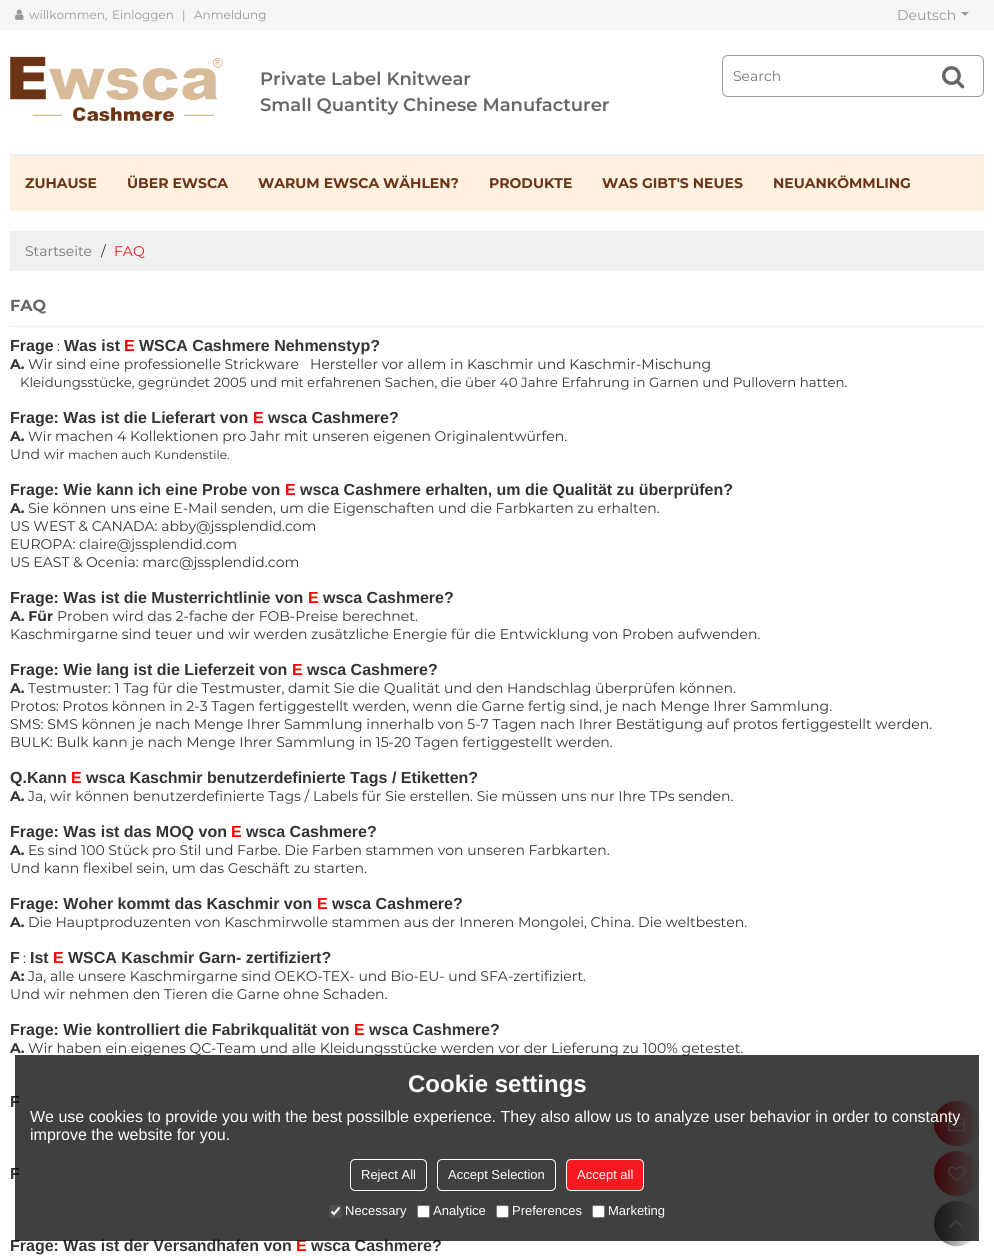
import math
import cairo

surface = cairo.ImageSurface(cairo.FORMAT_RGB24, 994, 1256)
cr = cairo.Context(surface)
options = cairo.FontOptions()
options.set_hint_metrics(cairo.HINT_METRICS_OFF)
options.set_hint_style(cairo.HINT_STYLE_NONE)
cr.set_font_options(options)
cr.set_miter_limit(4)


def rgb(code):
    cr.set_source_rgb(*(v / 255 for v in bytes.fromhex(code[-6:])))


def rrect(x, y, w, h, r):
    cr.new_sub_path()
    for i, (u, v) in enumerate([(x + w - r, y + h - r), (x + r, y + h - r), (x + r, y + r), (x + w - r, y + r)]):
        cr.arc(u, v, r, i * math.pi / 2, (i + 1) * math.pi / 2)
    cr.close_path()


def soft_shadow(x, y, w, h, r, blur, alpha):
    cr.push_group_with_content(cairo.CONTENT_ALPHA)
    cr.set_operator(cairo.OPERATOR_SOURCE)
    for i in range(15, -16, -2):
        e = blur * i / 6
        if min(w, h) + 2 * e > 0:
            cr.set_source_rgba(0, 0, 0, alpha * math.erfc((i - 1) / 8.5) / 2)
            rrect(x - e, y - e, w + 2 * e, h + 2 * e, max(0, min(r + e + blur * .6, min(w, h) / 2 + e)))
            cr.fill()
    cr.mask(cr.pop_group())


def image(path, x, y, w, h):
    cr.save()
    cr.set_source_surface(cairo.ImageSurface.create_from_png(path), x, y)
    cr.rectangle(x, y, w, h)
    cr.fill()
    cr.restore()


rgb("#ffffff")
cr.paint()
rgb("#f6f6f6")
cr.rectangle(0, 0, 994, 30)
cr.fill()
image("img/1.png", 15, 9, 9, 11)
rgb("#999999")
cr.new_path()
cr.move_to(961, 12)
cr.line_to(969, 12)
cr.line_to(965, 16)
cr.close_path()
cr.fill()
image("img/2.png", 10, 56, 213, 66)
rrect(722.5, 55.5, 261, 41, 5.5)
cr.set_line_width(1)
cr.stroke()
image("img/3.png", 942, 66, 23, 23)
for x, y, w, h, color in [
    (10, 156, 974, 55, "#fff0df"),
    (10, 154, 974, 2, "#eeeeee"),
    (10, 231, 974, 40, "#f0f0f0"),
    (10, 326, 974, 1, "#eeeeee"),
]:
    rgb(color)
    cr.rectangle(x, y, w, h)
    cr.fill()
rgb("#eeeeee")
soft_shadow(934, 1101, 45, 45, 22.5, 2.5, 1)
gradient = cairo.LinearGradient(934, 1124, 979, 1124)
gradient.add_color_stop_rgba(0, 0.965, 0.098, 0.122, 1)
gradient.add_color_stop_rgba(1, 1, 1, 1, 1)
cr.set_source(gradient)
cr.arc(956.5, 1123.5, 22.5, 0, 2 * math.pi)
cr.fill()
image("img/4.png", 948, 1117, 17, 15)
rgb("#eeeeee")
soft_shadow(934, 1151, 45, 45, 22.5, 2.5, 1)
gradient = cairo.LinearGradient(934, 1174, 979, 1174)
gradient.add_color_stop_rgba(0, 0.965, 0.098, 0.122, 1)
gradient.add_color_stop_rgba(1, 1, 1, 1, 1)
cr.set_source(gradient)
cr.arc(956.5, 1173.5, 22.5, 0, 2 * math.pi)
cr.fill()
image("img/5.png", 948, 1166, 17, 16)
rgb("#eeeeee")
soft_shadow(934, 1201, 45, 45, 22.5, 2.5, 1)
gradient = cairo.LinearGradient(934, 1224, 979, 1224)
gradient.add_color_stop_rgba(0, 0.4, 0.4, 0.4, 1)
gradient.add_color_stop_rgba(1, 1, 1, 1, 1)
cr.set_source(gradient)
cr.arc(956.5, 1223.5, 22.5, 0, 2 * math.pi)
cr.fill()
image("img/6.png", 949, 1219, 15, 9)
cr.select_font_face("Montserrat")
cr.set_font_size(12)
rgb("#999999")
for x, y, s in [
    (29, 19, "willkommen,"),
    (112, 19, "Einloggen"),
    (182, 19, "|"),
    (194, 19, "Anmeldung"),
]:
    cr.move_to(x, y)
    cr.show_text(s)
cr.set_font_size(14)
cr.move_to(897, 20)
cr.show_text("Deutsch")
cr.select_font_face("Montserrat SemiBold")
cr.set_font_size(18)
rgb("#666666")
cr.move_to(260, 85)
cr.show_text("Private Label Knitwear")
cr.move_to(260, 111)
cr.show_text("Small Quantity Chinese Manufacturer")
cr.select_font_face("Montserrat")
cr.set_font_size(14)
rgb("#777777")
cr.move_to(733, 81)
cr.show_text("Search")
cr.select_font_face("Montserrat", cairo.FONT_SLANT_NORMAL, cairo.FONT_WEIGHT_BOLD)
rgb("#6b3416")
for x, y, s in [
    (25, 188, "ZUHAUSE"),
    (127, 188, "ÜBER EWSCA"),
    (258, 188, "WARUM EWSCA WÄHLEN?"),
    (489, 188, "PRODUKTE"),
    (602, 188, "WAS GIBT'S NEUES"),
    (773, 188, "NEUANKÖMMLING"),
]:
    cr.move_to(x, y)
    cr.show_text(s)
cr.select_font_face("Montserrat")
rgb("#777777")
cr.move_to(25, 256)
cr.show_text("Startseite")
rgb("#333333")
cr.move_to(101, 256)
cr.show_text("/")
rgb("#f6191f")
cr.move_to(114, 256)
cr.show_text("FAQ")
cr.select_font_face("Montserrat", cairo.FONT_SLANT_NORMAL, cairo.FONT_WEIGHT_BOLD)
cr.set_font_size(16)
rgb("#666666")
cr.move_to(10, 311)
cr.show_text("FAQ")
cr.select_font_face("Liberation Sans", cairo.FONT_SLANT_NORMAL, cairo.FONT_WEIGHT_BOLD)
rgb("#333333")
cr.move_to(10, 351)
cr.show_text("Frage")
cr.select_font_face("Montserrat")
cr.set_font_size(14)
cr.move_to(57, 351)
cr.show_text(":")
cr.select_font_face("Liberation Sans", cairo.FONT_SLANT_NORMAL, cairo.FONT_WEIGHT_BOLD)
cr.set_font_size(16)
cr.move_to(64, 351)
cr.show_text("Was ist")
rgb("#ff0000")
cr.move_to(124, 351)
cr.show_text("E")
rgb("#333333")
cr.move_to(139, 351)
cr.show_text("WSCA Cashmere Nehmenstyp?")
cr.select_font_face("Montserrat", cairo.FONT_SLANT_NORMAL, cairo.FONT_WEIGHT_BOLD)
cr.set_font_size(14)
cr.move_to(10, 369)
cr.show_text("A.")
cr.select_font_face("Montserrat")
cr.move_to(28, 369)
cr.show_text("Wir sind eine professionelle Strickware")
cr.move_to(310, 369)
cr.show_text("Hersteller vor allem in Kaschmir und Kaschmir-Mischung")
cr.set_font_size(13.33)
cr.move_to(20, 387)
cr.show_text("Kleidungsstücke, gegründet 2005 und mit erfahrenen Sachen, die über 40 Jahre Erfahrung in Garnen und Pullovern hatten.")
cr.select_font_face("Liberation Sans", cairo.FONT_SLANT_NORMAL, cairo.FONT_WEIGHT_BOLD)
cr.set_font_size(16)
cr.move_to(10, 423)
cr.show_text("Frage: Was ist die Lieferart von")
rgb("#ff0000")
cr.move_to(253, 423)
cr.show_text("E")
rgb("#333333")
cr.move_to(268, 423)
cr.show_text("wsca Cashmere?")
cr.select_font_face("Montserrat", cairo.FONT_SLANT_NORMAL, cairo.FONT_WEIGHT_BOLD)
cr.set_font_size(14)
cr.move_to(10, 441)
cr.show_text("A.")
cr.select_font_face("Montserrat")
cr.set_font_size(13.33)
cr.move_to(28, 441)
cr.show_text("Wir")
cr.set_font_size(14)
cr.move_to(55, 441)
cr.show_text("machen 4 Kollektionen pro Jahr mit unseren eigenen Originalentwürfen.")
cr.move_to(10, 459)
cr.show_text("Und")
cr.set_font_size(13.33)
cr.move_to(44, 459)
cr.show_text("wir")
cr.set_font_size(12)
cr.move_to(68, 459)
cr.show_text("machen auch Kundenstile.")
cr.select_font_face("Liberation Sans", cairo.FONT_SLANT_NORMAL, cairo.FONT_WEIGHT_BOLD)
cr.set_font_size(16)
cr.move_to(10, 495)
cr.show_text("Frage: Wie kann ich eine Probe von")
rgb("#ff0000")
cr.move_to(285, 495)
cr.show_text("E")
rgb("#333333")
cr.move_to(300, 495)
cr.show_text("wsca Cashmere erhalten, um die Qualität zu überprüfen?")
cr.select_font_face("Montserrat", cairo.FONT_SLANT_NORMAL, cairo.FONT_WEIGHT_BOLD)
cr.set_font_size(14)
cr.move_to(10, 513)
cr.show_text("A.")
cr.select_font_face("Montserrat")
for x, y, s in [
    (28, 513, "Sie können uns eine E-Mail senden, um die Eigenschaften und die Farbkarten zu erhalten."),
    (10, 531, "US WEST & CANADA: abby@jssplendid.com"),
    (10, 549, "EUROPA: claire@jssplendid.com"),
    (10, 567, "US EAST & Ocenia: marc@jssplendid.com"),
]:
    cr.move_to(x, y)
    cr.show_text(s)
cr.select_font_face("Liberation Sans", cairo.FONT_SLANT_NORMAL, cairo.FONT_WEIGHT_BOLD)
cr.set_font_size(16)
cr.move_to(10, 603)
cr.show_text("Frage: Was ist die Musterrichtlinie von")
rgb("#ff0000")
cr.move_to(308, 603)
cr.show_text("E")
rgb("#333333")
cr.move_to(323, 603)
cr.show_text("wsca Cashmere?")
cr.select_font_face("Montserrat", cairo.FONT_SLANT_NORMAL, cairo.FONT_WEIGHT_BOLD)
cr.set_font_size(14)
cr.move_to(10, 621)
cr.show_text("A. Für")
cr.select_font_face("Montserrat")
cr.move_to(57, 621)
cr.show_text("Proben wird das 2-fache der FOB-Preise berechnet.")
cr.move_to(10, 639)
cr.show_text("Kaschmirgarne sind teuer und wir werden zusätzliche Energie für die Entwicklung von Proben aufwenden.")
cr.select_font_face("Liberation Sans", cairo.FONT_SLANT_NORMAL, cairo.FONT_WEIGHT_BOLD)
cr.set_font_size(16)
cr.move_to(10, 675)
cr.show_text("Frage: Wie lang ist die Lieferzeit von")
rgb("#ff0000")
cr.move_to(292, 675)
cr.show_text("E")
rgb("#333333")
cr.move_to(307, 675)
cr.show_text("wsca Cashmere?")
cr.select_font_face("Montserrat", cairo.FONT_SLANT_NORMAL, cairo.FONT_WEIGHT_BOLD)
cr.set_font_size(14)
cr.move_to(10, 693)
cr.show_text("A.")
cr.select_font_face("Montserrat")
for x, y, s in [
    (28, 693, "Testmuster: 1 Tag für die Testmuster, damit Sie die Qualität und den Handschlag überprüfen können."),
    (10, 711, "Protos: Protos können in 2-3 Tagen fertiggestellt werden, wenn die Garne fertig sind, je nach Menge Ihrer Sammlung."),
    (10, 729, "SMS: SMS können je nach Menge Ihrer Sammlung innerhalb von 5-7 Tagen nach Ihrer Bestätigung auf protos fertiggestellt werden."),
    (10, 747, "BULK: Bulk kann je nach Menge Ihrer Sammlung in 15-20 Tagen fertiggestellt werden."),
]:
    cr.move_to(x, y)
    cr.show_text(s)
cr.select_font_face("Liberation Sans", cairo.FONT_SLANT_NORMAL, cairo.FONT_WEIGHT_BOLD)
cr.set_font_size(16)
cr.move_to(10, 783)
cr.show_text("Q.Kann")
rgb("#ff0000")
cr.move_to(71, 783)
cr.show_text("E")
rgb("#333333")
cr.move_to(86, 783)
cr.show_text("wsca Kaschmir benutzerdefinierte Tags / Etiketten?")
cr.select_font_face("Montserrat", cairo.FONT_SLANT_NORMAL, cairo.FONT_WEIGHT_BOLD)
cr.set_font_size(14)
cr.move_to(10, 801)
cr.show_text("A.")
cr.select_font_face("Montserrat")
cr.move_to(28, 801)
cr.show_text("Ja, wir können benutzerdefinierte Tags / Labels für Sie erstellen. Sie müssen uns nur Ihre TPs senden.")
cr.select_font_face("Liberation Sans", cairo.FONT_SLANT_NORMAL, cairo.FONT_WEIGHT_BOLD)
cr.set_font_size(16)
cr.move_to(10, 837)
cr.show_text("Frage: Was ist das MOQ von")
rgb("#ff0000")
cr.move_to(231, 837)
cr.show_text("E")
rgb("#333333")
cr.move_to(246, 837)
cr.show_text("wsca Cashmere?")
cr.select_font_face("Montserrat", cairo.FONT_SLANT_NORMAL, cairo.FONT_WEIGHT_BOLD)
cr.set_font_size(14)
cr.move_to(10, 855)
cr.show_text("A.")
cr.select_font_face("Montserrat")
cr.move_to(28, 855)
cr.show_text("Es sind 100 Stück pro Stil und Farbe. Die Farben stammen von unseren Farbkarten.")
cr.move_to(10, 873)
cr.show_text("Und kann flexibel sein, um das Geschäft zu starten.")
cr.select_font_face("Liberation Sans", cairo.FONT_SLANT_NORMAL, cairo.FONT_WEIGHT_BOLD)
cr.set_font_size(16)
cr.move_to(10, 909)
cr.show_text("Frage: Woher kommt das Kaschmir von")
rgb("#ff0000")
cr.move_to(317, 909)
cr.show_text("E")
rgb("#333333")
cr.move_to(332, 909)
cr.show_text("wsca Cashmere?")
cr.select_font_face("Montserrat", cairo.FONT_SLANT_NORMAL, cairo.FONT_WEIGHT_BOLD)
cr.set_font_size(14)
cr.move_to(10, 927)
cr.show_text("A.")
cr.select_font_face("Montserrat")
cr.move_to(28, 927)
cr.show_text("Die Hauptproduzenten von Kaschmirwolle stammen aus der Inneren Mongolei, China. Die weltbesten.")
cr.select_font_face("Liberation Sans", cairo.FONT_SLANT_NORMAL, cairo.FONT_WEIGHT_BOLD)
cr.set_font_size(16)
cr.move_to(10, 963)
cr.show_text("F")
cr.select_font_face("Montserrat")
cr.set_font_size(14)
cr.move_to(23, 963)
cr.show_text(":")
cr.select_font_face("Liberation Sans", cairo.FONT_SLANT_NORMAL, cairo.FONT_WEIGHT_BOLD)
cr.set_font_size(16)
cr.move_to(30, 963)
cr.show_text("Ist")
rgb("#ff0000")
cr.move_to(53, 963)
cr.show_text("E")
rgb("#333333")
cr.move_to(68, 963)
cr.show_text("WSCA Kaschmir Garn- zertifiziert?")
cr.select_font_face("Montserrat", cairo.FONT_SLANT_NORMAL, cairo.FONT_WEIGHT_BOLD)
cr.set_font_size(14)
cr.move_to(10, 981)
cr.show_text("A:")
cr.select_font_face("Montserrat")
cr.move_to(28, 981)
cr.show_text("Ja, alle unsere Kaschmirgarne sind OEKO-TEX- und Bio-EU- und SFA-zertifiziert.")
cr.move_to(10, 999)
cr.show_text("Und wir nehmen den Tieren die Garne ohne Schaden.")
cr.select_font_face("Liberation Sans", cairo.FONT_SLANT_NORMAL, cairo.FONT_WEIGHT_BOLD)
cr.set_font_size(16)
cr.move_to(10, 1035)
cr.show_text("Frage: Wie kontrolliert die Fabrikqualität von")
rgb("#ff0000")
cr.move_to(354, 1035)
cr.show_text("E")
rgb("#333333")
cr.move_to(369, 1035)
cr.show_text("wsca Cashmere?")
cr.select_font_face("Montserrat", cairo.FONT_SLANT_NORMAL, cairo.FONT_WEIGHT_BOLD)
cr.set_font_size(14)
cr.move_to(10, 1053)
cr.show_text("A.")
cr.select_font_face("Montserrat")
cr.move_to(28, 1053)
cr.show_text("Wir haben ein eigenes QC-Team und alle Kleidungsstücke werden vor der Lieferung zu 100% getestet.")
cr.select_font_face("Liberation Sans", cairo.FONT_SLANT_NORMAL, cairo.FONT_WEIGHT_BOLD)
cr.set_font_size(16)
for x, y, s in [
    (10, 1107, "F"),
    (10, 1179, "F"),
    (10, 1251, "Frage: Was ist der Versandhafen von"),
]:
    cr.move_to(x, y)
    cr.show_text(s)
rgb("#ff0000")
cr.move_to(296, 1251)
cr.show_text("E")
rgb("#333333")
cr.move_to(311, 1251)
cr.show_text("wsca Cashmere?")
cr.set_source_rgba(0, 0, 0, 0.75)
cr.rectangle(15, 1055, 964, 186)
cr.fill()
cr.set_font_size(24)
rgb("#ffffff")
cr.move_to(408, 1092)
cr.show_text("Cookie settings")
cr.select_font_face("Liberation Sans")
cr.set_font_size(16)
cr.move_to(30, 1122)
cr.show_text("We use cookies to provide you with the best possilble experience. They also allow us to analyze user behavior in order to constanty")
cr.move_to(30, 1140)
cr.show_text("improve the website for you.")
rrect(350.5, 1159.5, 76, 31, 4.5)
cr.stroke()
cr.set_font_size(13)
cr.move_to(361, 1179)
cr.show_text("Reject All")
rrect(437.5, 1159.5, 118, 31, 4.5)
cr.stroke()
cr.move_to(448, 1179)
cr.show_text("Accept Selection")
rgb("#f6191f")
rrect(566.5, 1159.5, 77, 31, 4.5)
cr.fill_preserve()
rgb("#ffffff")
cr.stroke()
cr.move_to(577, 1179)
cr.show_text("Accept all")
cr.set_source_rgba(0.463, 0.463, 0.463, 0.3)
rrect(329, 1205, 13, 13, 2)
cr.fill()
cr.new_path()
cr.move_to(331.5, 1211.5)
cr.line_to(334, 1214)
cr.line_to(339.5, 1207.5)
rgb("#ffffff")
cr.set_line_width(2.1)
cr.stroke()
cr.move_to(345, 1215)
cr.show_text("Necessary")
rrect(417.5, 1205.5, 12, 12, 1.5)
cr.fill_preserve()
rgb("#767676")
cr.set_line_width(1)
cr.stroke()
rgb("#ffffff")
cr.move_to(433, 1215)
cr.show_text("Analytice")
rrect(496.5, 1205.5, 12, 12, 1.5)
cr.fill_preserve()
rgb("#767676")
cr.stroke()
rgb("#ffffff")
cr.move_to(512, 1215)
cr.show_text("Preferences")
rrect(592.5, 1205.5, 12, 12, 1.5)
cr.fill_preserve()
rgb("#767676")
cr.stroke()
rgb("#ffffff")
cr.move_to(608, 1215)
cr.show_text("Marketing")
surface.write_to_png("page.png")
